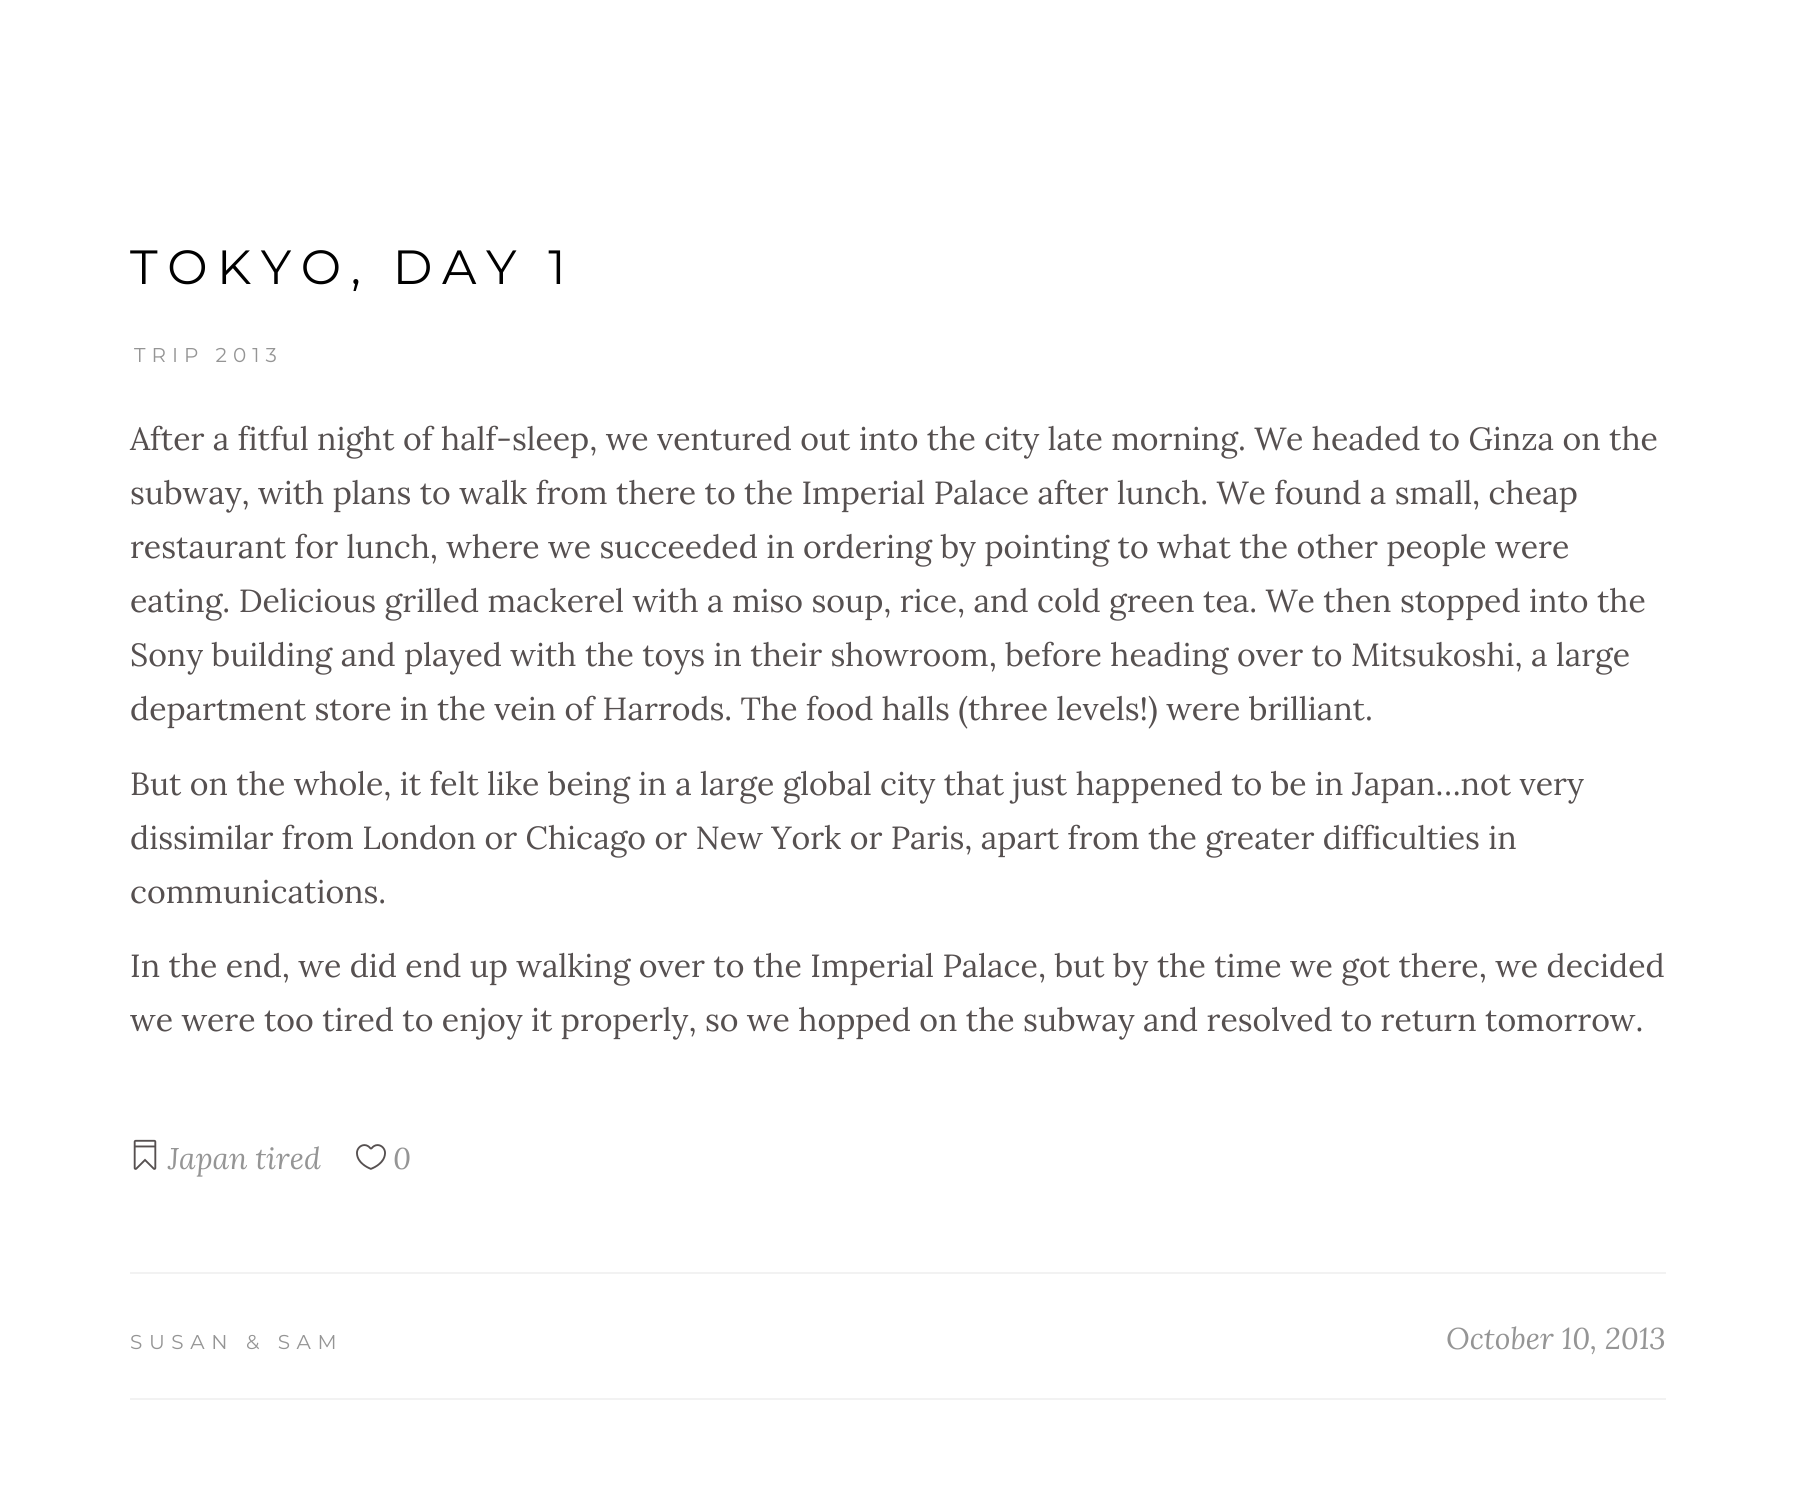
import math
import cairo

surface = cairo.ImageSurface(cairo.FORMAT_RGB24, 1795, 1486)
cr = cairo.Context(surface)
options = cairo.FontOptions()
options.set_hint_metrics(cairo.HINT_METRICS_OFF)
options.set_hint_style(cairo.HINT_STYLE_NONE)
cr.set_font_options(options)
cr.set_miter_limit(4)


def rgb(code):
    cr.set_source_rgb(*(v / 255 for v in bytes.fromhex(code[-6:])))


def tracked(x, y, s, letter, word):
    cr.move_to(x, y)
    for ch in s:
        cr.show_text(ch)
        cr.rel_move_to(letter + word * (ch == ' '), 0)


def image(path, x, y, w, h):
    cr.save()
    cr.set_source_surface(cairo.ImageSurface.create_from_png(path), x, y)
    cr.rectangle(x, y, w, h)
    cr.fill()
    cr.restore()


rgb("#ffffff")
cr.paint()
rgb("#f2f2f2")
cr.rectangle(130, 1398, 1536, 2)
cr.fill()
image("img/1.png", 133, 1139, 24, 31)
image("img/2.png", 356, 1144, 30, 26)
cr.rectangle(130, 1272, 1536, 2)
cr.fill()
cr.select_font_face("Montserrat")
cr.set_font_size(48)
rgb("#000000")
tracked(130, 284, "TOKYO, DAY 1", 9.6, 0)
cr.set_font_size(20)
rgb("#959595")
tracked(134, 362, "TRIP 2013", 6, 0)
cr.select_font_face("Lora")
cr.set_font_size(32)
rgb("#565050")
for x, y, s in [
    (130, 450, "After a fitful night of half-sleep, we ventured out into the city late morning. We headed to Ginza on the"),
    (130, 504, "subway, with plans to walk from there to the Imperial Palace after lunch. We found a small, cheap"),
    (130, 558, "restaurant for lunch, where we succeeded in ordering by pointing to what the other people were"),
    (130, 612, "eating. Delicious grilled mackerel with a miso soup, rice, and cold green tea. We then stopped into the"),
    (130, 666, "Sony building and played with the toys in their showroom, before heading over to Mitsukoshi, a large"),
    (130, 720, "department store in the vein of Harrods. The food halls (three levels!) were brilliant."),
    (130, 795, "But on the whole, it felt like being in a large global city that just happened to be in Japan…not very"),
    (130, 849, "dissimilar from London or Chicago or New York or Paris, apart from the greater difficulties in"),
    (130, 903, "communications."),
    (130, 977, "In the end, we did end up walking over to the Imperial Palace, but by the time we got there, we decided"),
    (130, 1031, "we were too tired to enjoy it properly, so we hopped on the subway and resolved to return tomorrow."),
]:
    cr.move_to(x, y)
    cr.show_text(s)
cr.select_font_face("Lora", cairo.FONT_SLANT_ITALIC)
cr.set_font_size(30)
rgb("#959595")
cr.move_to(168, 1169)
cr.show_text("Japan tired")
cr.move_to(393, 1169)
cr.show_text("0")
cr.select_font_face("Montserrat")
cr.set_font_size(20)
tracked(130, 1349, "SUSAN & SAM", 6.6, 0)
cr.select_font_face("Lora", cairo.FONT_SLANT_ITALIC)
cr.set_font_size(30)
cr.move_to(1446, 1349)
cr.show_text("October 10, 2013")
surface.write_to_png("page.png")
